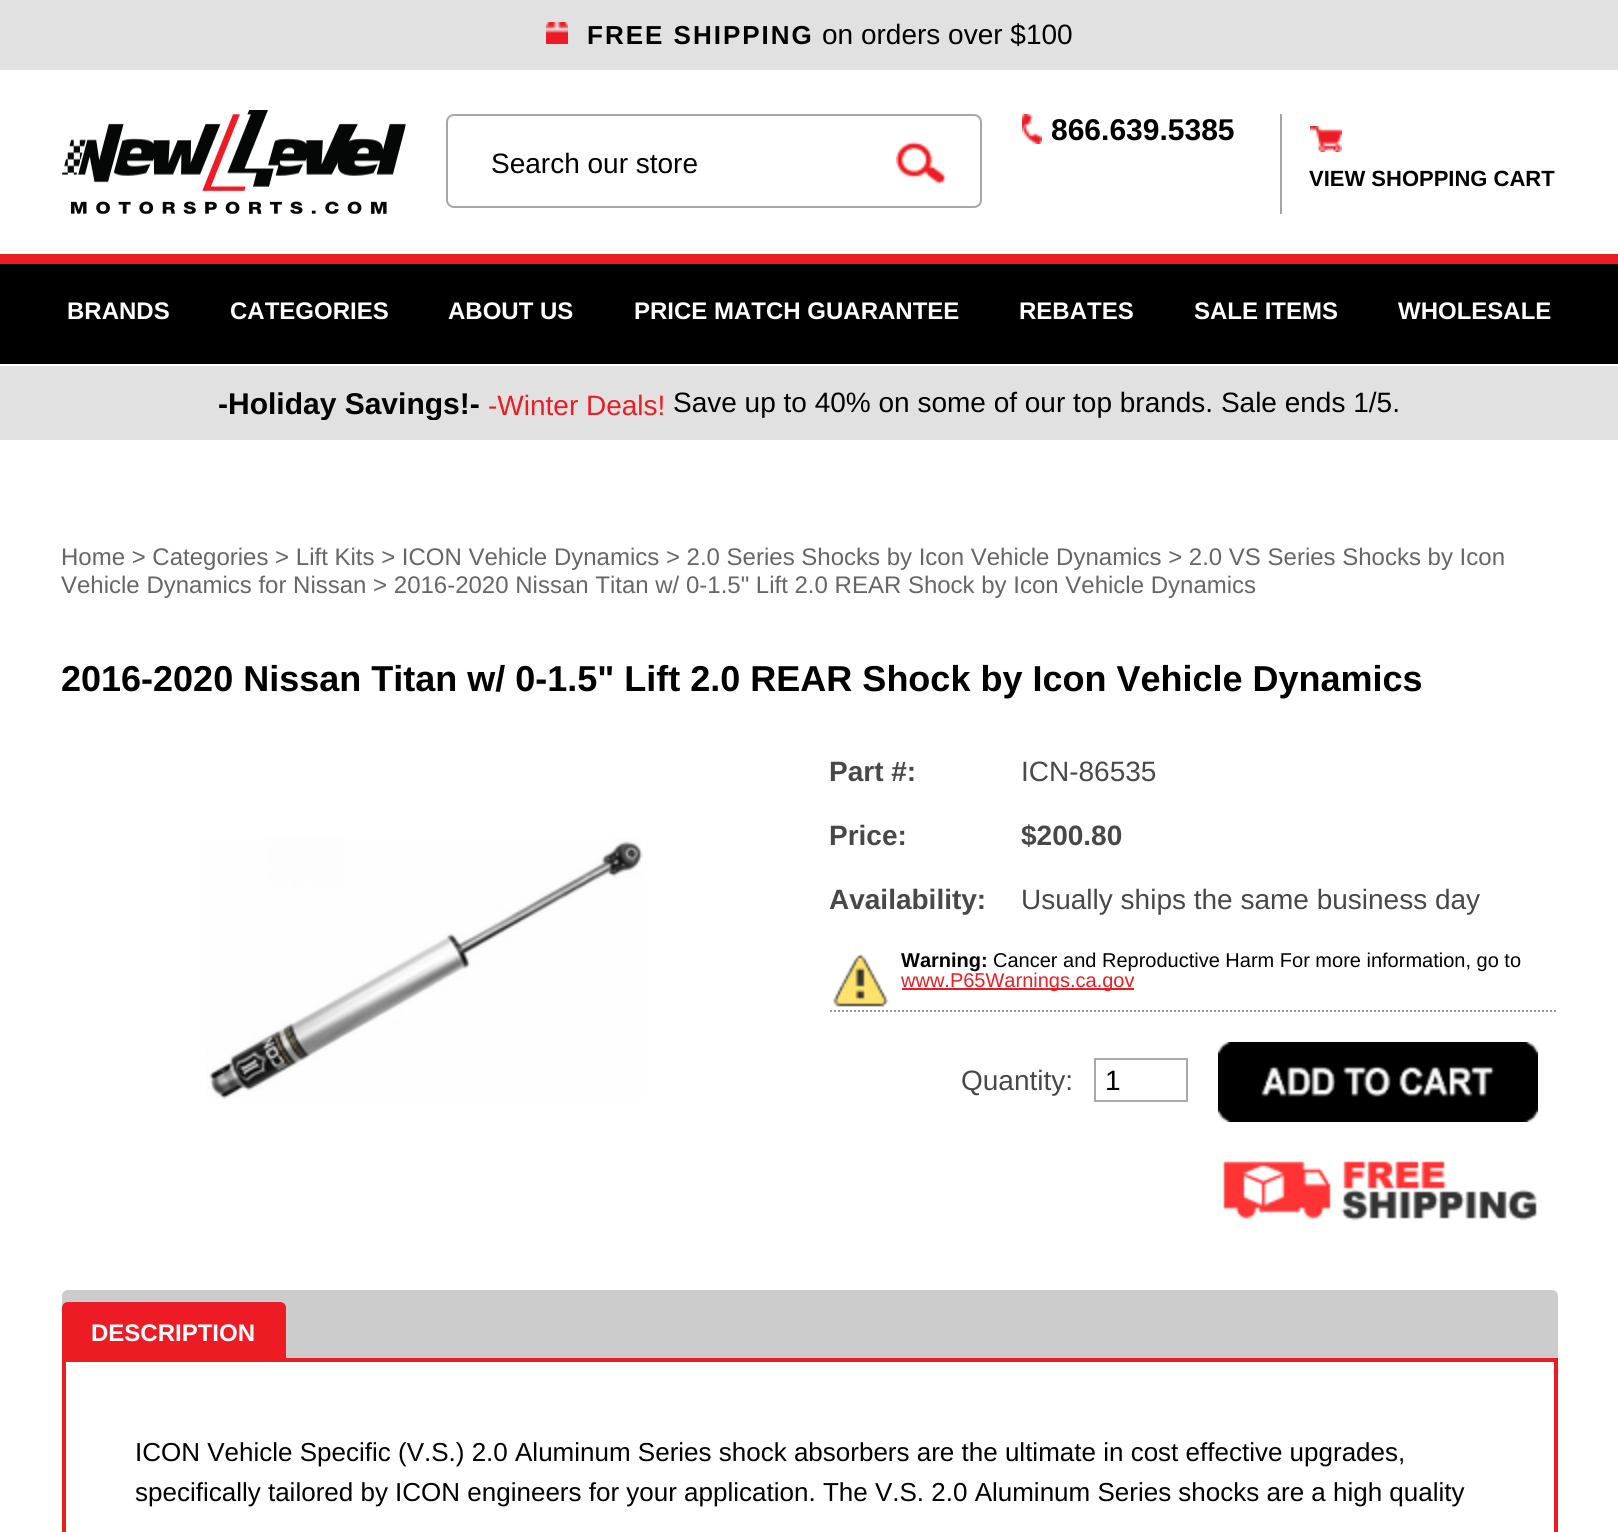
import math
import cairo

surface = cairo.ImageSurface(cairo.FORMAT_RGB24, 1618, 1532)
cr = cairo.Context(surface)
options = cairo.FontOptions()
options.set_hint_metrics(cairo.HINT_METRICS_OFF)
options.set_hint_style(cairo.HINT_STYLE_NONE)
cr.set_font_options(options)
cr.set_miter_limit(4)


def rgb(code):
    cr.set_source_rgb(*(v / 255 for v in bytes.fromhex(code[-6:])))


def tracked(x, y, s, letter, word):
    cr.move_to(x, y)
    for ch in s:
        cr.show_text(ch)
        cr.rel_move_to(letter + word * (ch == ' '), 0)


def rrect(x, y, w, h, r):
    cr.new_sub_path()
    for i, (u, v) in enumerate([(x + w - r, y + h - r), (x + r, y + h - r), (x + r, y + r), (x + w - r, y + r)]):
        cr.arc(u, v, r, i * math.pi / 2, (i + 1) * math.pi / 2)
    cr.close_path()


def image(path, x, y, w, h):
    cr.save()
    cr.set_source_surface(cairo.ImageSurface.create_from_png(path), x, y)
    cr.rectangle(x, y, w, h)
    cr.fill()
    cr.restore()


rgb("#ffffff")
cr.paint()
rgb("#e1e1e1")
cr.rectangle(0, 0, 1618, 70)
cr.fill()
image("img/1.png", 546, 22, 22, 22)
rgb("#ed1c24")
cr.rectangle(0, 254, 1618, 10)
cr.fill()
image("img/2.png", 62, 110, 344, 104)
image("img/3.png", 1022, 114, 20, 30)
rrect(447, 115, 534, 92, 7)
rgb("#a7a7a7")
cr.stroke()
image("img/4.png", 896, 142, 50, 42)
image("img/5.png", 1310, 126, 32, 26)
for x, y, w, h, color in [
    (1280, 114, 2, 100, "#a6a6a6"),
    (0, 264, 1618, 100, "#000000"),
    (0, 366, 1618, 74, "#e1e1e1"),
]:
    rgb(color)
    cr.rectangle(x, y, w, h)
    cr.fill()
image("img/6.png", 206, 838, 437, 261)
image("img/7.png", 833, 953, 56, 54)
rgb("#ed1c24")
cr.rectangle(902, 988, 232, 2)
cr.fill()
cr.new_path()
cr.move_to(830, 1011)
cr.line_to(1558, 1011)
rgb("#999999")
cr.set_dash([2, 2])
cr.stroke()
cr.rectangle(1095, 1059, 92, 42)
rgb("#a9a9a9")
cr.set_dash([])
cr.stroke()
image("img/8.png", 1218, 1042, 320, 80)
image("img/9.png", 1223, 1161, 314, 60)
rgb("#cccccc")
cr.new_path()
cr.move_to(68, 1290)
cr.line_to(1552, 1290)
cr.curve_to(1555.5, 1290, 1558, 1292.5, 1558, 1296)
cr.line_to(1558, 1358)
cr.line_to(62, 1358)
cr.line_to(62, 1296)
cr.curve_to(62, 1292.5, 64.5, 1290, 68, 1290)
cr.close_path()
cr.fill()
rgb("#ed1c24")
cr.new_path()
cr.move_to(68, 1302)
cr.line_to(280, 1302)
cr.curve_to(283.5, 1302, 286, 1304.5, 286, 1308)
cr.line_to(286, 1358)
cr.line_to(62, 1358)
cr.line_to(62, 1308)
cr.curve_to(62, 1304.5, 64.5, 1302, 68, 1302)
cr.close_path()
cr.fill()
cr.rectangle(64, 1360, 1492, 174)
cr.set_line_width(4)
cr.stroke()
cr.select_font_face("Liberation Sans", cairo.FONT_SLANT_NORMAL, cairo.FONT_WEIGHT_BOLD)
cr.set_font_size(26)
rgb("#000000")
tracked(587, 44, "FREE SHIPPING", 2, 0)
cr.select_font_face("Liberation Sans")
cr.set_font_size(28)
cr.move_to(822, 44)
cr.show_text("on orders over $100")
cr.select_font_face("Liberation Sans", cairo.FONT_SLANT_NORMAL, cairo.FONT_WEIGHT_BOLD)
cr.set_font_size(30)
cr.move_to(1051, 140)
cr.show_text("866.639.5385")
cr.select_font_face("Liberation Sans")
cr.set_font_size(28)
cr.move_to(491, 173)
cr.show_text("Search our store")
cr.select_font_face("Liberation Sans", cairo.FONT_SLANT_NORMAL, cairo.FONT_WEIGHT_BOLD)
cr.set_font_size(22)
cr.move_to(1309, 186)
cr.show_text("VIEW SHOPPING CART")
cr.set_font_size(24)
rgb("#ffffff")
for x, y, s in [
    (67, 319, "BRANDS"),
    (230, 319, "CATEGORIES"),
    (448, 319, "ABOUT US"),
    (634, 319, "PRICE MATCH GUARANTEE"),
    (1019, 319, "REBATES"),
    (1194, 319, "SALE ITEMS"),
    (1398, 319, "WHOLESALE"),
]:
    cr.move_to(x, y)
    cr.show_text(s)
cr.save()
cr.rectangle(42, 386, 1536, 34)
cr.clip()
cr.set_font_size(30)
rgb("#000000")
cr.move_to(218, 414)
cr.show_text("-Holiday Savings!-")
cr.restore()
cr.select_font_face("Liberation Sans")
cr.set_font_size(28)
rgb("#ed1c24")
cr.move_to(488, 415)
cr.show_text("-Winter Deals!")
rgb("#000000")
cr.move_to(673, 412)
cr.show_text("Save up to 40% on some of our top brands. Sale ends 1/5.")
cr.set_font_size(24)
rgb("#666666")
cr.move_to(61, 565)
cr.show_text("Home > Categories > Lift Kits > ICON Vehicle Dynamics > 2.0 Series Shocks by Icon Vehicle Dynamics > 2.0 VS Series Shocks by Icon")
cr.move_to(61, 593)
cr.show_text("Vehicle Dynamics for Nissan > 2016-2020 Nissan Titan w/ 0-1.5\" Lift 2.0 REAR Shock by Icon Vehicle Dynamics")
cr.select_font_face("Liberation Sans", cairo.FONT_SLANT_NORMAL, cairo.FONT_WEIGHT_BOLD)
cr.set_font_size(36)
rgb("#000000")
cr.move_to(61, 691)
cr.show_text("2016-2020 Nissan Titan w/ 0-1.5\" Lift 2.0 REAR Shock by Icon Vehicle Dynamics")
cr.set_font_size(28)
rgb("#484848")
cr.move_to(829, 781)
cr.show_text("Part #:")
cr.select_font_face("Liberation Sans")
cr.move_to(1021, 781)
cr.show_text("ICN-86535")
cr.select_font_face("Liberation Sans", cairo.FONT_SLANT_NORMAL, cairo.FONT_WEIGHT_BOLD)
for x, y, s in [
    (829, 845, "Price:"),
    (1021, 845, "$200.80"),
    (829, 909, "Availability:"),
]:
    cr.move_to(x, y)
    cr.show_text(s)
cr.select_font_face("Liberation Sans")
cr.move_to(1021, 909)
cr.show_text("Usually ships the same business day")
cr.select_font_face("Liberation Sans", cairo.FONT_SLANT_NORMAL, cairo.FONT_WEIGHT_BOLD)
cr.set_font_size(20)
rgb("#000000")
cr.move_to(901, 967)
cr.show_text("Warning:")
cr.select_font_face("Liberation Sans")
cr.move_to(993, 967)
cr.show_text("Cancer and Reproductive Harm For more information, go to")
rgb("#ed1c24")
cr.move_to(901, 987)
cr.show_text("www.P65Warnings.ca.gov")
cr.set_font_size(28)
rgb("#484848")
cr.move_to(961, 1090)
cr.show_text("Quantity:")
rgb("#000000")
cr.move_to(1105, 1090)
cr.show_text("1")
cr.select_font_face("Liberation Sans", cairo.FONT_SLANT_NORMAL, cairo.FONT_WEIGHT_BOLD)
cr.set_font_size(24)
rgb("#ffffff")
cr.move_to(91, 1341)
cr.show_text("DESCRIPTION")
cr.select_font_face("Liberation Sans")
cr.set_font_size(26)
rgb("#000000")
cr.move_to(135, 1461)
cr.show_text("ICON Vehicle Specific (V.S.) 2.0 Aluminum Series shock absorbers are the ultimate in cost effective upgrades,")
cr.move_to(135, 1501)
cr.show_text("specifically tailored by ICON engineers for your application. The V.S. 2.0 Aluminum Series shocks are a high quality")
surface.write_to_png("page.png")
